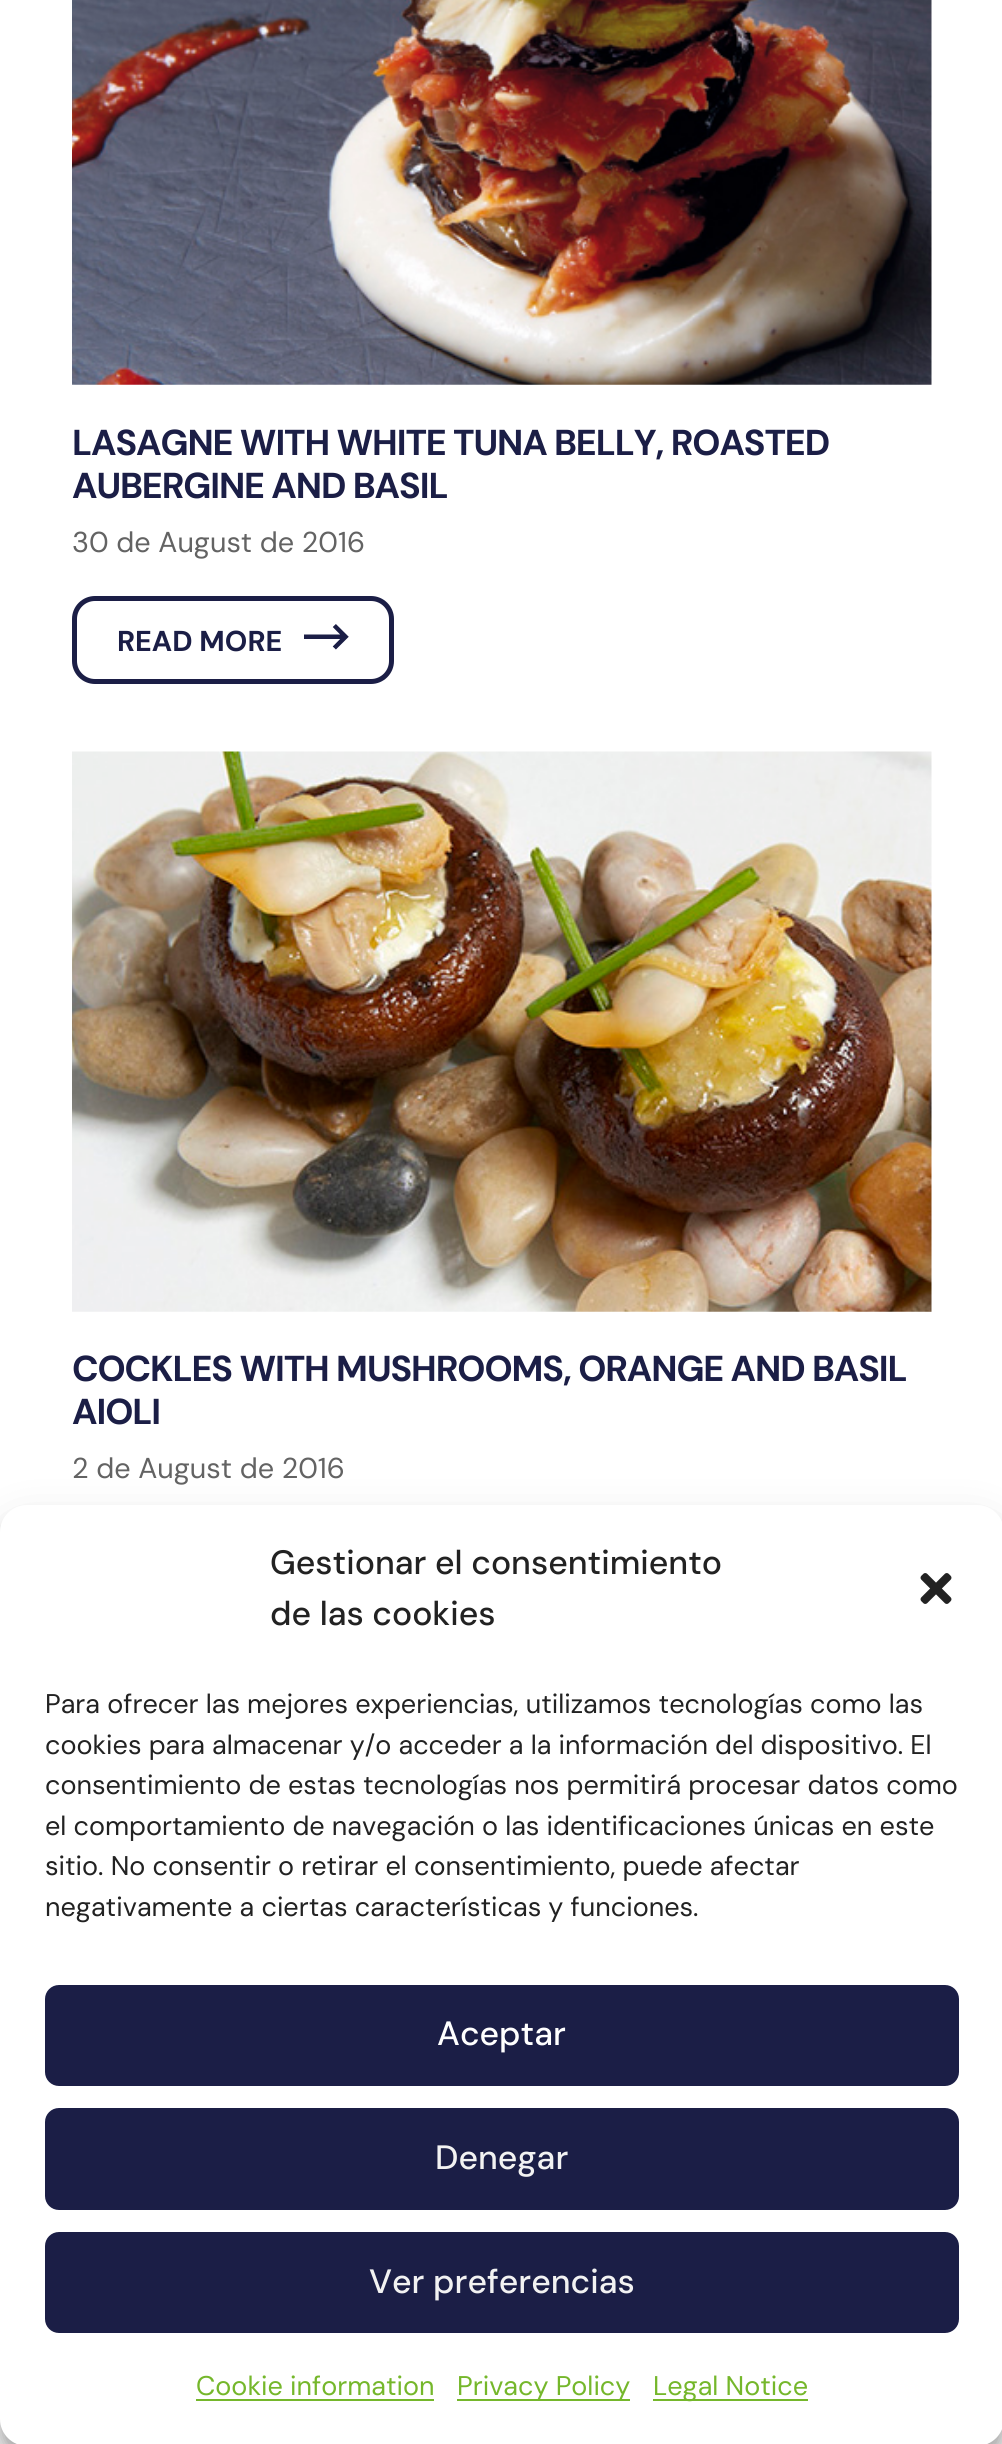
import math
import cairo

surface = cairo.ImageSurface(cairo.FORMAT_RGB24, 1002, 2444)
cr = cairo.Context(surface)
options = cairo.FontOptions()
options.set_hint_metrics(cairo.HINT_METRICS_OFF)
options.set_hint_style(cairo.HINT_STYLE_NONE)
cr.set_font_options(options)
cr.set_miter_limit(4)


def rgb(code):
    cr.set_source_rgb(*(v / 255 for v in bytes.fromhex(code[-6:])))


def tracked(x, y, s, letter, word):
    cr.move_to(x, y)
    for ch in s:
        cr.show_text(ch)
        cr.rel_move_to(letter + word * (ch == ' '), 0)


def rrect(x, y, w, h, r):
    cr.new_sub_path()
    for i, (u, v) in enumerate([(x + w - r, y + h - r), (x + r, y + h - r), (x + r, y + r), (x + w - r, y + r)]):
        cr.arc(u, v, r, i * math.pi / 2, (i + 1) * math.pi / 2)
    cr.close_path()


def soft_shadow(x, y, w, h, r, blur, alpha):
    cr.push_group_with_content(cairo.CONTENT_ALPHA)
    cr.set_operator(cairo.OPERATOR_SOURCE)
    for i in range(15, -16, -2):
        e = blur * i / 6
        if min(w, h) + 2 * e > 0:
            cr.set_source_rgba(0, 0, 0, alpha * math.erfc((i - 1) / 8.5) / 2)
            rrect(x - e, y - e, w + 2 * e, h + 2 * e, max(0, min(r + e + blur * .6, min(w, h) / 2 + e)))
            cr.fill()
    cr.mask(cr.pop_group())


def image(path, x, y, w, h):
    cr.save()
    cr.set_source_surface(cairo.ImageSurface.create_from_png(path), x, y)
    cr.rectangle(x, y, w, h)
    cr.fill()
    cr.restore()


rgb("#ffffff")
cr.paint()
image("img/1.png", 72, 0, 860, 385)
rrect(74.5, 598.5, 317, 83, 20.5)
rgb("#1b1e46")
cr.set_line_width(5)
cr.stroke()
image("img/2.png", 304, 624, 45, 26)
image("img/3.png", 72, 751, 860, 561)
rgb("#000000")
soft_shadow(0, 1519, 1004, 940, 27, 7, 0.23)
soft_shadow(0, 1528, 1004, 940, 27, 22.5, 0.19)
rgb("#ffffff")
rrect(0, 1505, 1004, 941, 27)
cr.fill()
image("img/4.png", 920, 1573, 32, 31)
rgb("#1b1e46")
rrect(46, 1986, 912, 99, 13)
cr.fill_preserve()
cr.set_line_width(2)
cr.stroke()
rrect(46, 2109, 912, 100, 13)
cr.fill_preserve()
cr.stroke()
rrect(46, 2233, 912, 99, 13)
cr.fill_preserve()
cr.stroke()
for x, y, w, h, color in [
    (196, 2399, 238, 2, "#75b72b"),
    (457, 2399, 173, 2, "#75b72b"),
    (653, 2399, 155, 2, "#75b72b"),
]:
    rgb(color)
    cr.rectangle(x, y, w, h)
    cr.fill()
cr.select_font_face("DM Sans", cairo.FONT_SLANT_NORMAL, cairo.FONT_WEIGHT_BOLD)
cr.set_font_size(36)
rgb("#1b1e46")
tracked(72, 455, "LASAGNE WITH WHITE TUNA BELLY, ROASTED", -1.1, 0)
tracked(72, 498, "AUBERGINE AND BASIL", -1.1, 0)
cr.select_font_face("DM Sans")
cr.set_font_size(28.75)
rgb("#636363")
cr.move_to(72, 552)
cr.show_text("30 de August de 2016")
cr.select_font_face("DM Sans", cairo.FONT_SLANT_NORMAL, cairo.FONT_WEIGHT_BOLD)
rgb("#1b1e46")
cr.move_to(117, 651)
cr.show_text("READ MORE")
cr.set_font_size(36)
tracked(72, 1381, "COCKLES WITH MUSHROOMS, ORANGE AND BASIL", -1.1, 0)
tracked(72, 1424, "AIOLI", -1.1, 0)
cr.select_font_face("DM Sans")
cr.set_font_size(28.75)
rgb("#636363")
cr.move_to(72, 1478)
cr.show_text("2 de August de 2016")
cr.select_font_face("DM Sans Medium")
cr.set_font_size(33.75)
rgb("#222222")
cr.move_to(270, 1574)
cr.show_text("Gestionar el consentimiento")
cr.move_to(270, 1625)
cr.show_text("de las cookies")
cr.select_font_face("DM Sans")
cr.set_font_size(27)
for x, y, s in [
    (45, 1713, "Para ofrecer las mejores experiencias, utilizamos tecnologías como las"),
    (45, 1754, "cookies para almacenar y/o acceder a la información del dispositivo. El"),
    (45, 1794, "consentimiento de estas tecnologías nos permitirá procesar datos como"),
    (45, 1835, "el comportamiento de navegación o las identificaciones únicas en este"),
    (45, 1875, "sitio. No consentir o retirar el consentimiento, puede afectar"),
    (45, 1916, "negativamente a ciertas características y funciones."),
]:
    cr.move_to(x, y)
    cr.show_text(s)
cr.select_font_face("DM Sans Medium")
cr.set_font_size(33.75)
rgb("#ffffff")
cr.move_to(437, 2045)
cr.show_text("Aceptar")
rgb("#f2f2f2")
cr.move_to(435, 2169)
cr.show_text("Denegar")
cr.move_to(369, 2293)
cr.show_text("Ver preferencias")
cr.select_font_face("DM Sans")
cr.set_font_size(27)
rgb("#75b72b")
for x, y, s in [
    (196, 2395, "Cookie information"),
    (457, 2395, "Privacy Policy"),
    (653, 2395, "Legal Notice"),
]:
    cr.move_to(x, y)
    cr.show_text(s)
surface.write_to_png("page.png")
